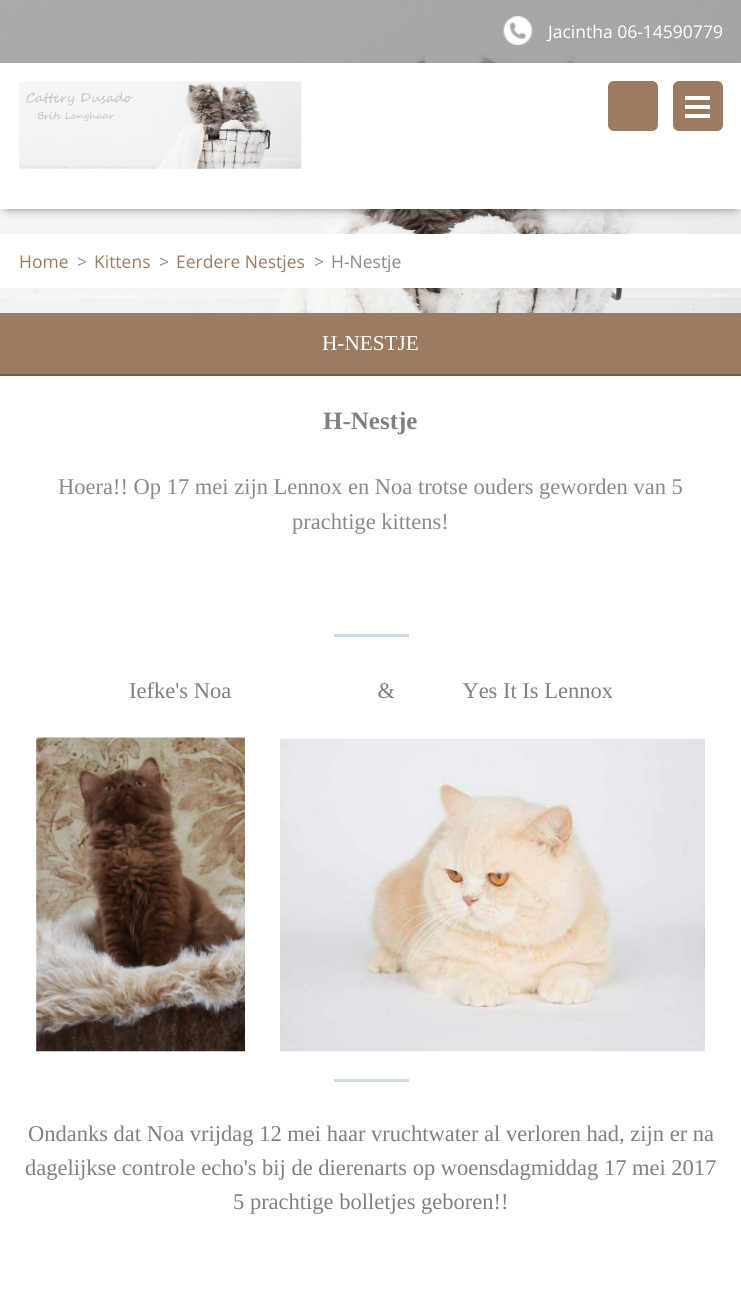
import math
import cairo

surface = cairo.ImageSurface(cairo.FORMAT_RGB24, 741, 1307)
cr = cairo.Context(surface)
options = cairo.FontOptions()
options.set_hint_metrics(cairo.HINT_METRICS_OFF)
options.set_hint_style(cairo.HINT_STYLE_NONE)
cr.set_font_options(options)
cr.set_miter_limit(4)


def rgb(code):
    cr.set_source_rgb(*(v / 255 for v in bytes.fromhex(code[-6:])))


def rrect(x, y, w, h, r):
    cr.new_sub_path()
    for i, (u, v) in enumerate([(x + w - r, y + h - r), (x + r, y + h - r), (x + r, y + r), (x + w - r, y + r)]):
        cr.arc(u, v, r, i * math.pi / 2, (i + 1) * math.pi / 2)
    cr.close_path()


def soft_shadow(x, y, w, h, r, blur, alpha):
    cr.push_group_with_content(cairo.CONTENT_ALPHA)
    cr.set_operator(cairo.OPERATOR_SOURCE)
    for i in range(15, -16, -2):
        e = blur * i / 6
        if min(w, h) + 2 * e > 0:
            cr.set_source_rgba(0, 0, 0, alpha * math.erfc((i - 1) / 8.5) / 2)
            rrect(x - e, y - e, w + 2 * e, h + 2 * e, max(0, min(r + e + blur * .6, min(w, h) / 2 + e)))
            cr.fill()
    cr.mask(cr.pop_group())


def image(path, x, y, w, h):
    cr.save()
    cr.set_source_surface(cairo.ImageSurface.create_from_png(path), x, y)
    cr.rectangle(x, y, w, h)
    cr.fill()
    cr.restore()


rgb("#ffffff")
cr.paint()
image("img/1.png", 0, 0, 741, 313)
cr.set_source_rgba(0.208, 0.208, 0.208, 0.4)
cr.rectangle(0, 0, 741, 63)
cr.fill()
image("img/2.png", 503, 16, 30, 29)
rgb("#353535")
soft_shadow(8, 75, 726, 131, 0, 6, 1)
rgb("#ffffff")
cr.rectangle(0, 63, 741, 146)
cr.fill()
image("img/3.png", 19, 81, 283, 88)
rgb("#9b7b61")
rrect(608, 81, 50, 50, 6)
cr.fill()
rrect(673, 81, 50, 50, 6)
cr.fill()
for x, y, w, h, color in [
    (685, 96, 25, 4, "#ffffff"),
    (685, 105, 25, 4, "#ffffff"),
    (685, 114, 25, 4, "#ffffff"),
    (0, 234, 741, 54, "#ffffff"),
    (0, 313, 741, 61, "#9b7b61"),
    (0, 374, 741, 2, "#7c5e47"),
    (334, 634, 75, 3, "#d2dae4"),
]:
    rgb(color)
    cr.rectangle(x, y, w, h)
    cr.fill()
image("img/4.png", 36, 737, 209, 315)
image("img/5.png", 280, 738, 425, 314)
cr.rectangle(334, 1079, 75, 3)
cr.fill()
cr.select_font_face("Open Sans")
cr.set_font_size(17.5)
rgb("#ffffff")
cr.move_to(548, 38)
cr.show_text("Jacintha 06-14590779")
rgb("#9b7b61")
cr.move_to(19, 268)
cr.show_text("Home")
rgb("#8a8a8a")
cr.move_to(77, 268)
cr.show_text(">")
rgb("#9b7b61")
cr.move_to(94, 268)
cr.show_text("Kittens")
rgb("#8a8a8a")
cr.move_to(159, 268)
cr.show_text(">")
rgb("#9b7b61")
cr.move_to(176, 268)
cr.show_text("Eerdere Nestjes")
rgb("#8a8a8a")
cr.move_to(314, 268)
cr.show_text(">")
cr.move_to(331, 268)
cr.show_text("H-Nestje")
cr.select_font_face("Liberation Serif")
cr.set_font_size(21.25)
rgb("#ffffff")
cr.move_to(322, 350)
cr.show_text("H-NESTJE")
cr.select_font_face("Liberation Serif", cairo.FONT_SLANT_NORMAL, cairo.FONT_WEIGHT_BOLD)
cr.set_font_size(25)
rgb("#808080")
cr.move_to(323, 429)
cr.show_text("H-Nestje")
cr.select_font_face("Liberation Serif")
cr.set_font_size(22.5)
rgb("#8a8a8a")
cr.move_to(58, 494)
cr.show_text("Hoera!! Op 17 mei zijn Lennox en Noa trotse ouders geworden van 5")
cr.move_to(292, 529)
cr.show_text("prachtige kittens!")
rgb("#808080")
for x, y, s in [
    (129, 698, "Iefke's Noa                          &            Yes It Is Lennox"),
    (28, 1141, "Ondanks dat Noa vrijdag 12 mei haar vruchtwater al verloren had, zijn er na"),
    (25, 1175, "dagelijkse controle echo's bij de dierenarts op woensdagmiddag 17 mei 2017"),
    (233, 1209, "5 prachtige bolletjes geboren!!"),
]:
    cr.move_to(x, y)
    cr.show_text(s)
surface.write_to_png("page.png")
